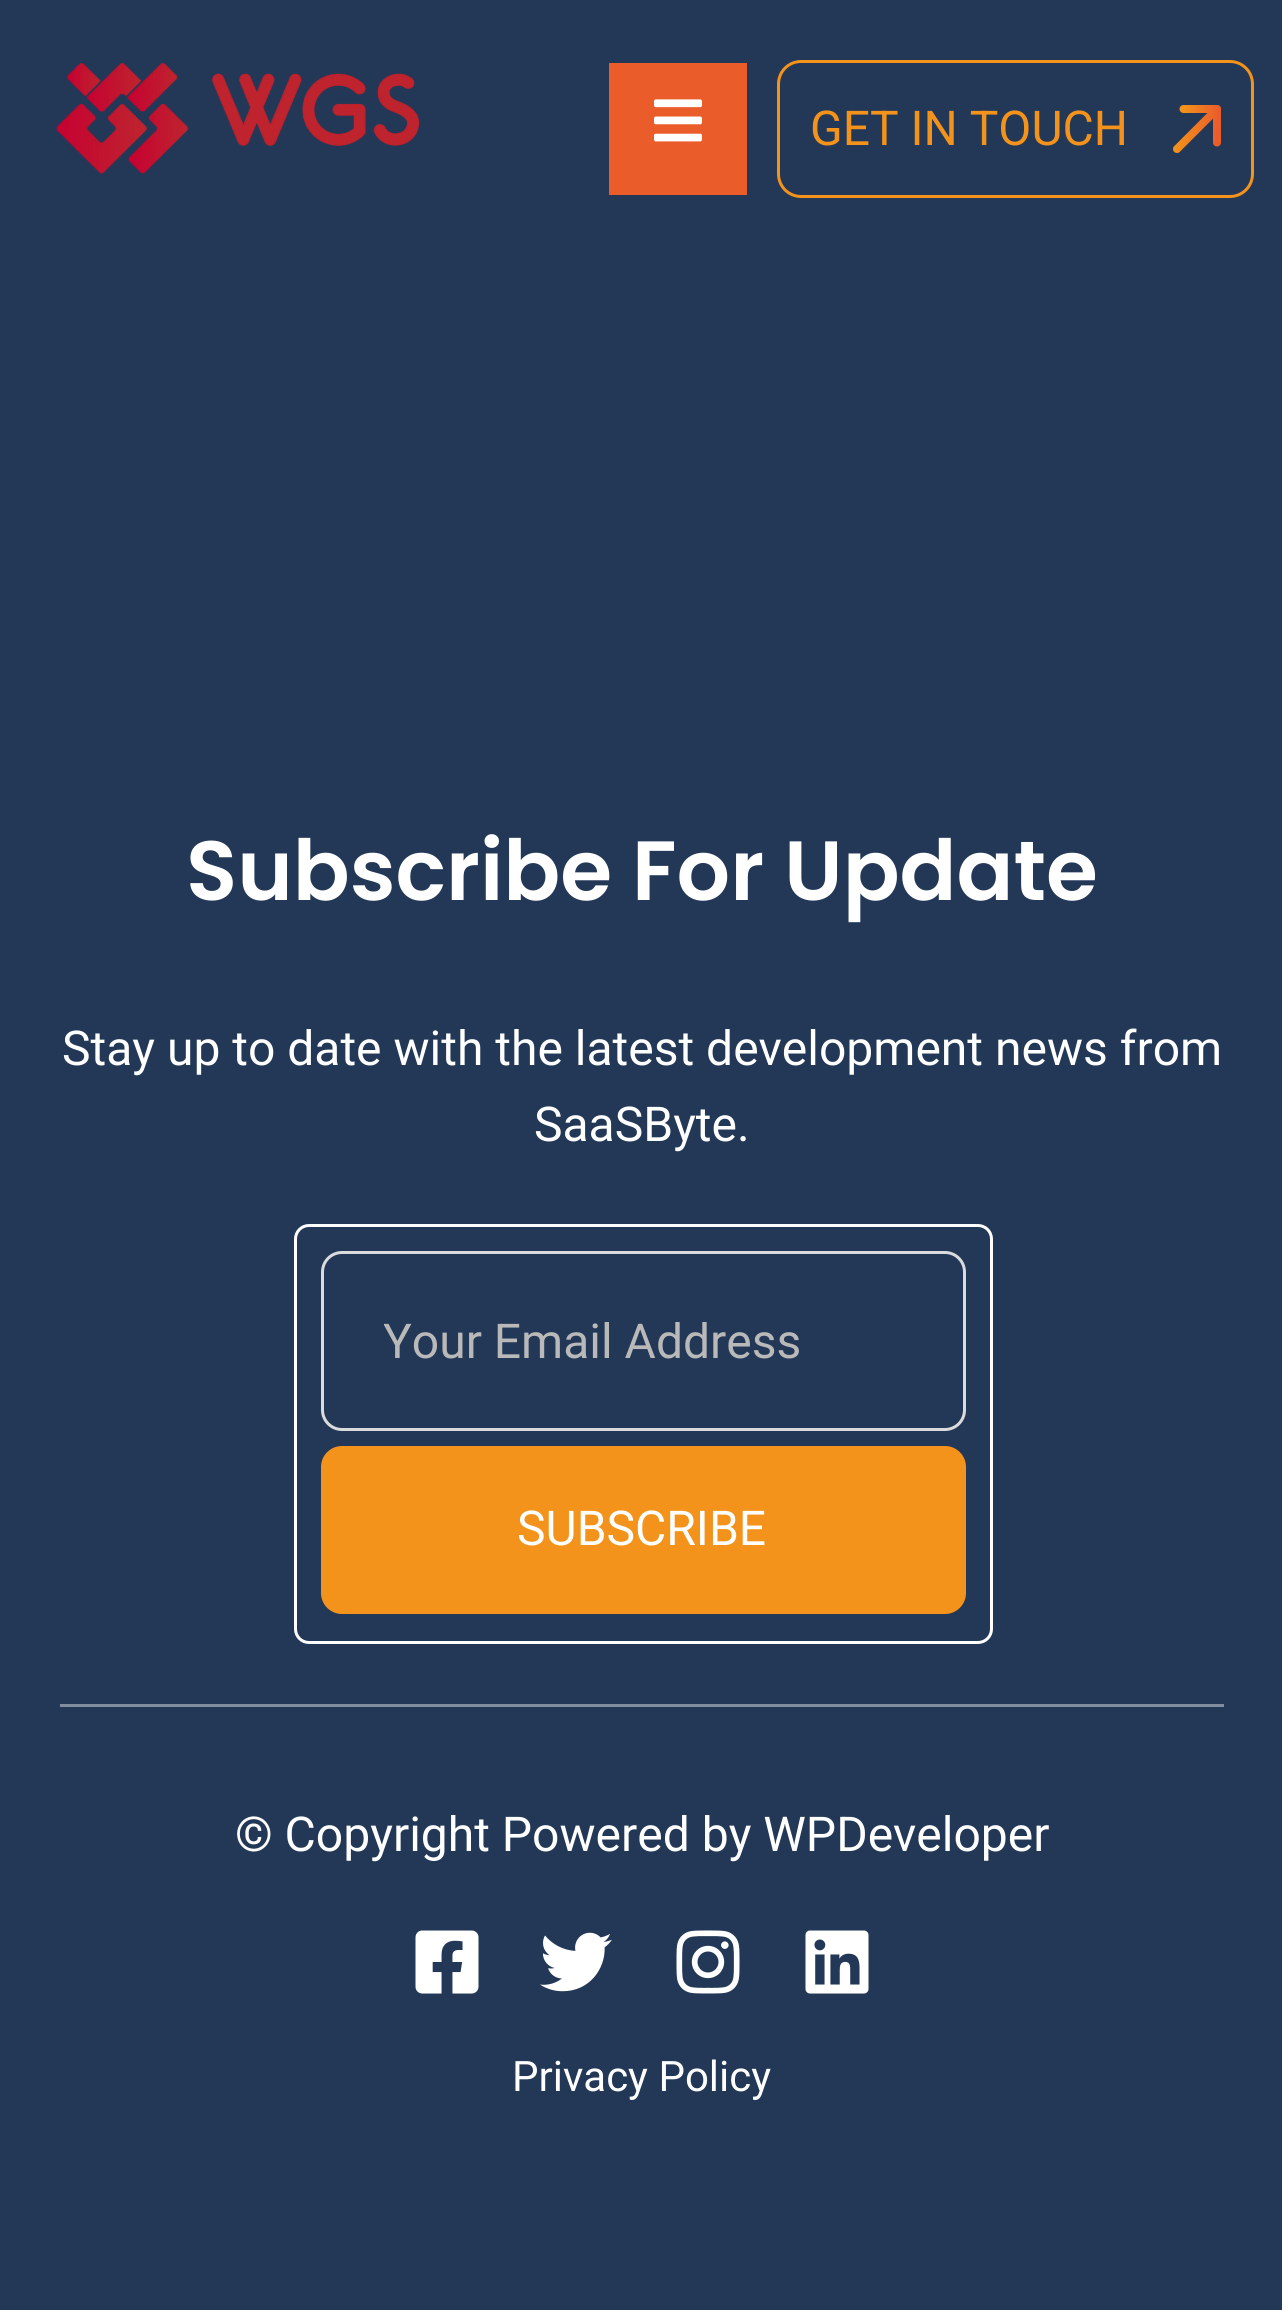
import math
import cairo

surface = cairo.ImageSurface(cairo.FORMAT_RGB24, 1282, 2310)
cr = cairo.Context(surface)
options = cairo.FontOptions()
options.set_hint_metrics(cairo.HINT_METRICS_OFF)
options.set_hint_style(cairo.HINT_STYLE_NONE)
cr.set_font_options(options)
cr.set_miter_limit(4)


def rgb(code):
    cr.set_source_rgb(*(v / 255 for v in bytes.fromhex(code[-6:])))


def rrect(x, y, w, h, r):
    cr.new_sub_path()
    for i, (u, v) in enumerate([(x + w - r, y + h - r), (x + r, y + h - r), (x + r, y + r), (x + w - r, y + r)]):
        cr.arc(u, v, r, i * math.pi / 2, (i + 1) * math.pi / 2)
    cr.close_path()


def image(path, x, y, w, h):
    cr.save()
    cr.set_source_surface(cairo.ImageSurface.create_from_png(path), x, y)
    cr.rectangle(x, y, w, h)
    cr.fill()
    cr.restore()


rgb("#233857")
cr.paint()
image("img/1.png", 56, 62, 364, 112)
rgb("#eb5c2b")
cr.rectangle(609, 63, 138, 132)
cr.fill()
image("img/2.png", 654, 99, 48, 43)
rrect(778.5, 61.5, 474, 135, 22.5)
rgb("#f3931b")
cr.set_line_width(3)
cr.stroke()
cr.new_path()
cr.move_to(1177, 149)
cr.line_to(1217, 109)
gradient = cairo.LinearGradient(1177, 109, 1220, 112)
gradient.add_color_stop_rgba(0, 0.953, 0.576, 0.106, 1)
gradient.add_color_stop_rgba(1, 0.922, 0.361, 0.169, 1)
cr.set_source(gradient)
cr.set_line_width(8)
cr.set_line_cap(cairo.LINE_CAP_ROUND)
cr.set_line_join(cairo.LINE_JOIN_ROUND)
cr.stroke()
cr.new_path()
cr.move_to(1183.5, 109)
cr.line_to(1217, 109)
cr.line_to(1217, 142.5)
gradient = cairo.LinearGradient(1183, 109, 1219, 112)
gradient.add_color_stop_rgba(0, 0.953, 0.576, 0.106, 1)
gradient.add_color_stop_rgba(1, 0.922, 0.361, 0.169, 1)
cr.set_source(gradient)
cr.stroke()
rrect(295.5, 1225.5, 696, 417, 13.5)
rgb("#ffffff")
cr.set_line_width(3)
cr.set_line_cap(cairo.LINE_CAP_BUTT)
cr.set_line_join(cairo.LINE_JOIN_MITER)
cr.stroke()
rrect(322.5, 1252.5, 642, 177, 19.5)
rgb("#dadbdd")
cr.stroke()
rgb("#f3931b")
rrect(322.5, 1447.5, 642, 165, 19.5)
cr.fill_preserve()
cr.stroke()
rgb("#828e9f")
cr.rectangle(60, 1704, 1164, 3)
cr.fill()
image("img/3.png", 415, 1930, 64, 64)
image("img/4.png", 540, 1932, 72, 60)
image("img/5.png", 676, 1930, 64, 64)
image("img/6.png", 805, 1930, 64, 64)
cr.select_font_face("Roboto")
cr.set_font_size(48)
rgb("#f3931b")
cr.move_to(810, 145)
cr.show_text("GET IN TOUCH")
cr.select_font_face("Poppins SemiBold")
cr.set_font_size(84)
rgb("#ffffff")
cr.move_to(186, 900)
cr.show_text("Subscribe For Update")
cr.select_font_face("Roboto")
cr.set_font_size(48)
cr.move_to(62, 1065)
cr.show_text("Stay up to date with the latest development news from")
cr.move_to(534, 1141)
cr.show_text("SaaSByte.")
cr.save()
cr.rectangle(384, 1314, 549, 57)
cr.clip()
rgb("#b9b9b9")
cr.move_to(383, 1358)
cr.show_text("Your Email Address")
cr.restore()
cr.move_to(517, 1545)
cr.show_text("SUBSCRIBE")
cr.move_to(235, 1851)
cr.show_text("© Copyright Powered by WPDeveloper")
cr.set_font_size(42)
cr.move_to(512, 2091)
cr.show_text("Privacy Policy")
surface.write_to_png("page.png")
